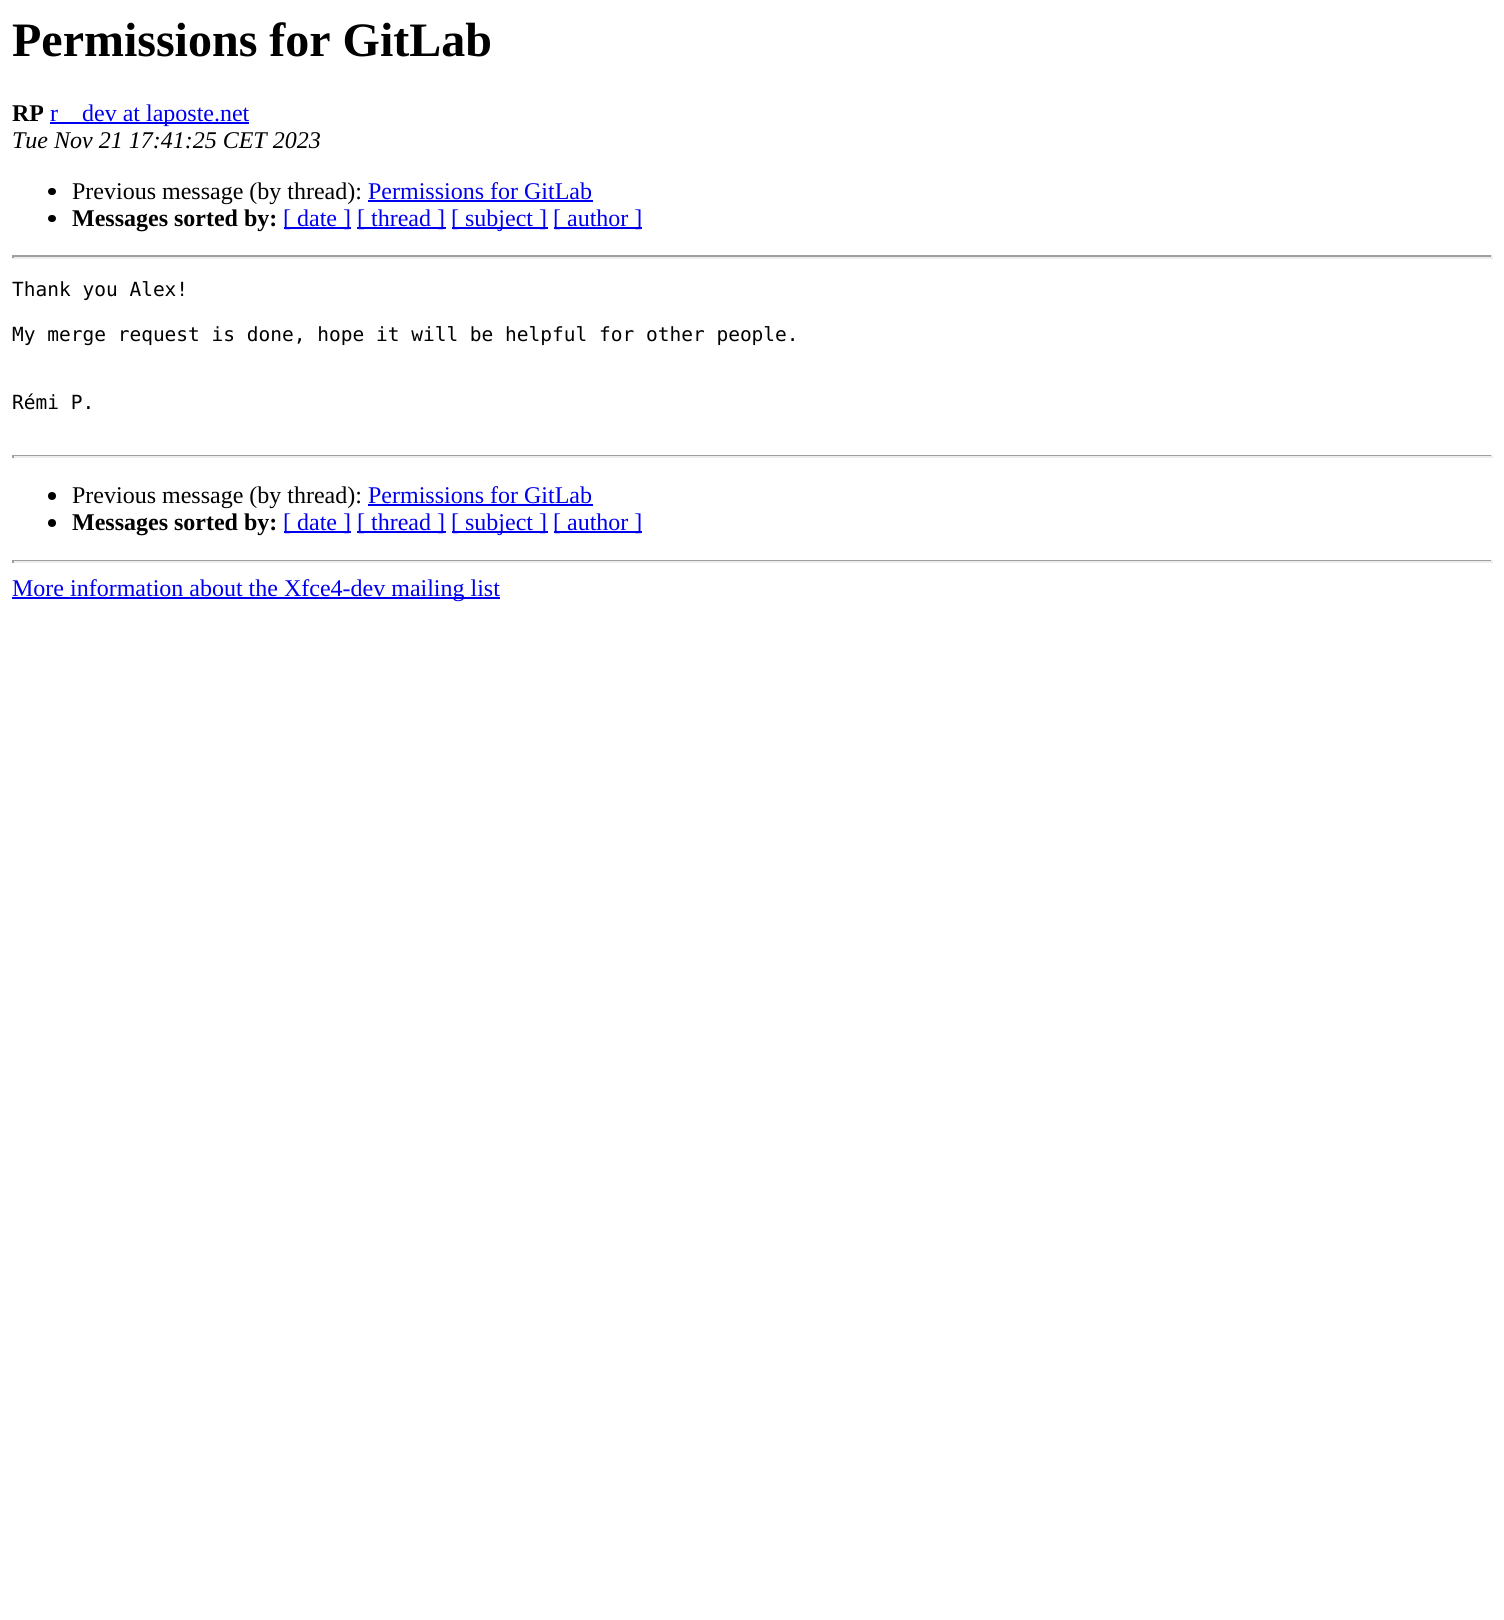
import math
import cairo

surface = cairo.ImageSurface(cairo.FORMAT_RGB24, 1504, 1620)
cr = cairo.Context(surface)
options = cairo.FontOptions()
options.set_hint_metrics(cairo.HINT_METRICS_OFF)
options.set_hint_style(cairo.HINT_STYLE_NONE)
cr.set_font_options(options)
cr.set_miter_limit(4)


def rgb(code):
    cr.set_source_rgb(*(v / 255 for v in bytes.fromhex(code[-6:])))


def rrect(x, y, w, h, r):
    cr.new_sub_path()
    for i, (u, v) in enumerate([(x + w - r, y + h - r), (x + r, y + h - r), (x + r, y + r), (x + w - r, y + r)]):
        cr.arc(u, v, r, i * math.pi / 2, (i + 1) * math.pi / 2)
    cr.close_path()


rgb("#ffffff")
cr.paint()
rgb("#0000ee")
cr.rectangle(50, 122, 199, 2)
cr.fill()
rgb("#000000")
rrect(48, 188, 8, 7, 3.5)
cr.fill()
rgb("#0000ee")
cr.rectangle(368, 200, 225, 2)
cr.fill()
rgb("#000000")
rrect(48, 215, 8, 7, 3.5)
cr.fill()
for x, y, w, h, color in [
    (284, 227, 67, 2, "#0000ee"),
    (357, 227, 89, 2, "#0000ee"),
    (452, 227, 96, 2, "#0000ee"),
    (554, 227, 88, 2, "#0000ee"),
    (12, 255, 1481, 2, "#9f9f9f"),
    (1491, 255, 2, 3, "#eeeeee"),
    (12, 257, 1481, 2, "#eeeeee"),
    (12, 255, 2, 3, "#9f9f9f"),
    (12, 455, 1481, 1, "#9f9f9f"),
    (1491, 455, 2, 3, "#eeeeee"),
    (12, 456, 1481, 2, "#eeeeee"),
    (12, 455, 2, 3, "#9f9f9f"),
]:
    rgb(color)
    cr.rectangle(x, y, w, h)
    cr.fill()
rgb("#000000")
cr.arc(52, 496, 4, 0, 2 * math.pi)
cr.fill()
rgb("#0000ee")
cr.rectangle(368, 504, 225, 2)
cr.fill()
rgb("#000000")
cr.arc(52, 523, 4, 0, 2 * math.pi)
cr.fill()
for x, y, w, h, color in [
    (284, 531, 67, 2, "#0000ee"),
    (357, 531, 89, 2, "#0000ee"),
    (452, 531, 96, 2, "#0000ee"),
    (554, 531, 88, 2, "#0000ee"),
    (12, 560, 1481, 1, "#9f9f9f"),
    (1491, 560, 2, 3, "#eeeeee"),
    (12, 561, 1481, 2, "#eeeeee"),
    (12, 560, 2, 3, "#9f9f9f"),
    (12, 597, 488, 2, "#0000ee"),
]:
    rgb(color)
    cr.rectangle(x, y, w, h)
    cr.fill()
cr.select_font_face("Liberation Serif", cairo.FONT_SLANT_NORMAL, cairo.FONT_WEIGHT_BOLD)
cr.set_font_size(48)
rgb("#000000")
cr.move_to(12, 56)
cr.show_text("Permissions for GitLab")
cr.set_font_size(24)
cr.move_to(12, 121)
cr.show_text("RP")
cr.select_font_face("Liberation Serif")
rgb("#0000ee")
cr.move_to(50, 121)
cr.show_text("r")
cr.move_to(82, 121)
cr.show_text("dev at laposte.net")
cr.select_font_face("Liberation Serif", cairo.FONT_SLANT_ITALIC)
rgb("#000000")
cr.move_to(12, 148)
cr.show_text("Tue Nov 21 17:41:25 CET 2023")
cr.select_font_face("Liberation Serif")
cr.move_to(72, 199)
cr.show_text("Previous message (by thread):")
rgb("#0000ee")
cr.move_to(368, 199)
cr.show_text("Permissions for GitLab")
cr.select_font_face("Liberation Serif", cairo.FONT_SLANT_NORMAL, cairo.FONT_WEIGHT_BOLD)
rgb("#000000")
cr.move_to(72, 226)
cr.show_text("Messages sorted by:")
cr.select_font_face("Liberation Serif")
rgb("#0000ee")
for x, y, s in [
    (283, 226, "[ date ]"),
    (357, 226, "[ thread ]"),
    (451, 226, "[ subject ]"),
    (553, 226, "[ author ]"),
]:
    cr.move_to(x, y)
    cr.show_text(s)
cr.select_font_face("DejaVu Sans Mono")
cr.set_font_size(19.5)
rgb("#000000")
for x, y, s in [
    (12, 296, "Thank you Alex!"),
    (12, 341, "My merge request is done, hope it will be helpful for other people."),
    (12, 409, "Rémi P."),
]:
    cr.move_to(x, y)
    cr.show_text(s)
cr.select_font_face("Liberation Serif")
cr.set_font_size(24)
cr.move_to(72, 503)
cr.show_text("Previous message (by thread):")
rgb("#0000ee")
cr.move_to(368, 503)
cr.show_text("Permissions for GitLab")
cr.select_font_face("Liberation Serif", cairo.FONT_SLANT_NORMAL, cairo.FONT_WEIGHT_BOLD)
rgb("#000000")
cr.move_to(72, 530)
cr.show_text("Messages sorted by:")
cr.select_font_face("Liberation Serif")
rgb("#0000ee")
for x, y, s in [
    (283, 530, "[ date ]"),
    (357, 530, "[ thread ]"),
    (451, 530, "[ subject ]"),
    (553, 530, "[ author ]"),
    (12, 596, "More information about the Xfce4-dev mailing list"),
]:
    cr.move_to(x, y)
    cr.show_text(s)
surface.write_to_png("page.png")
